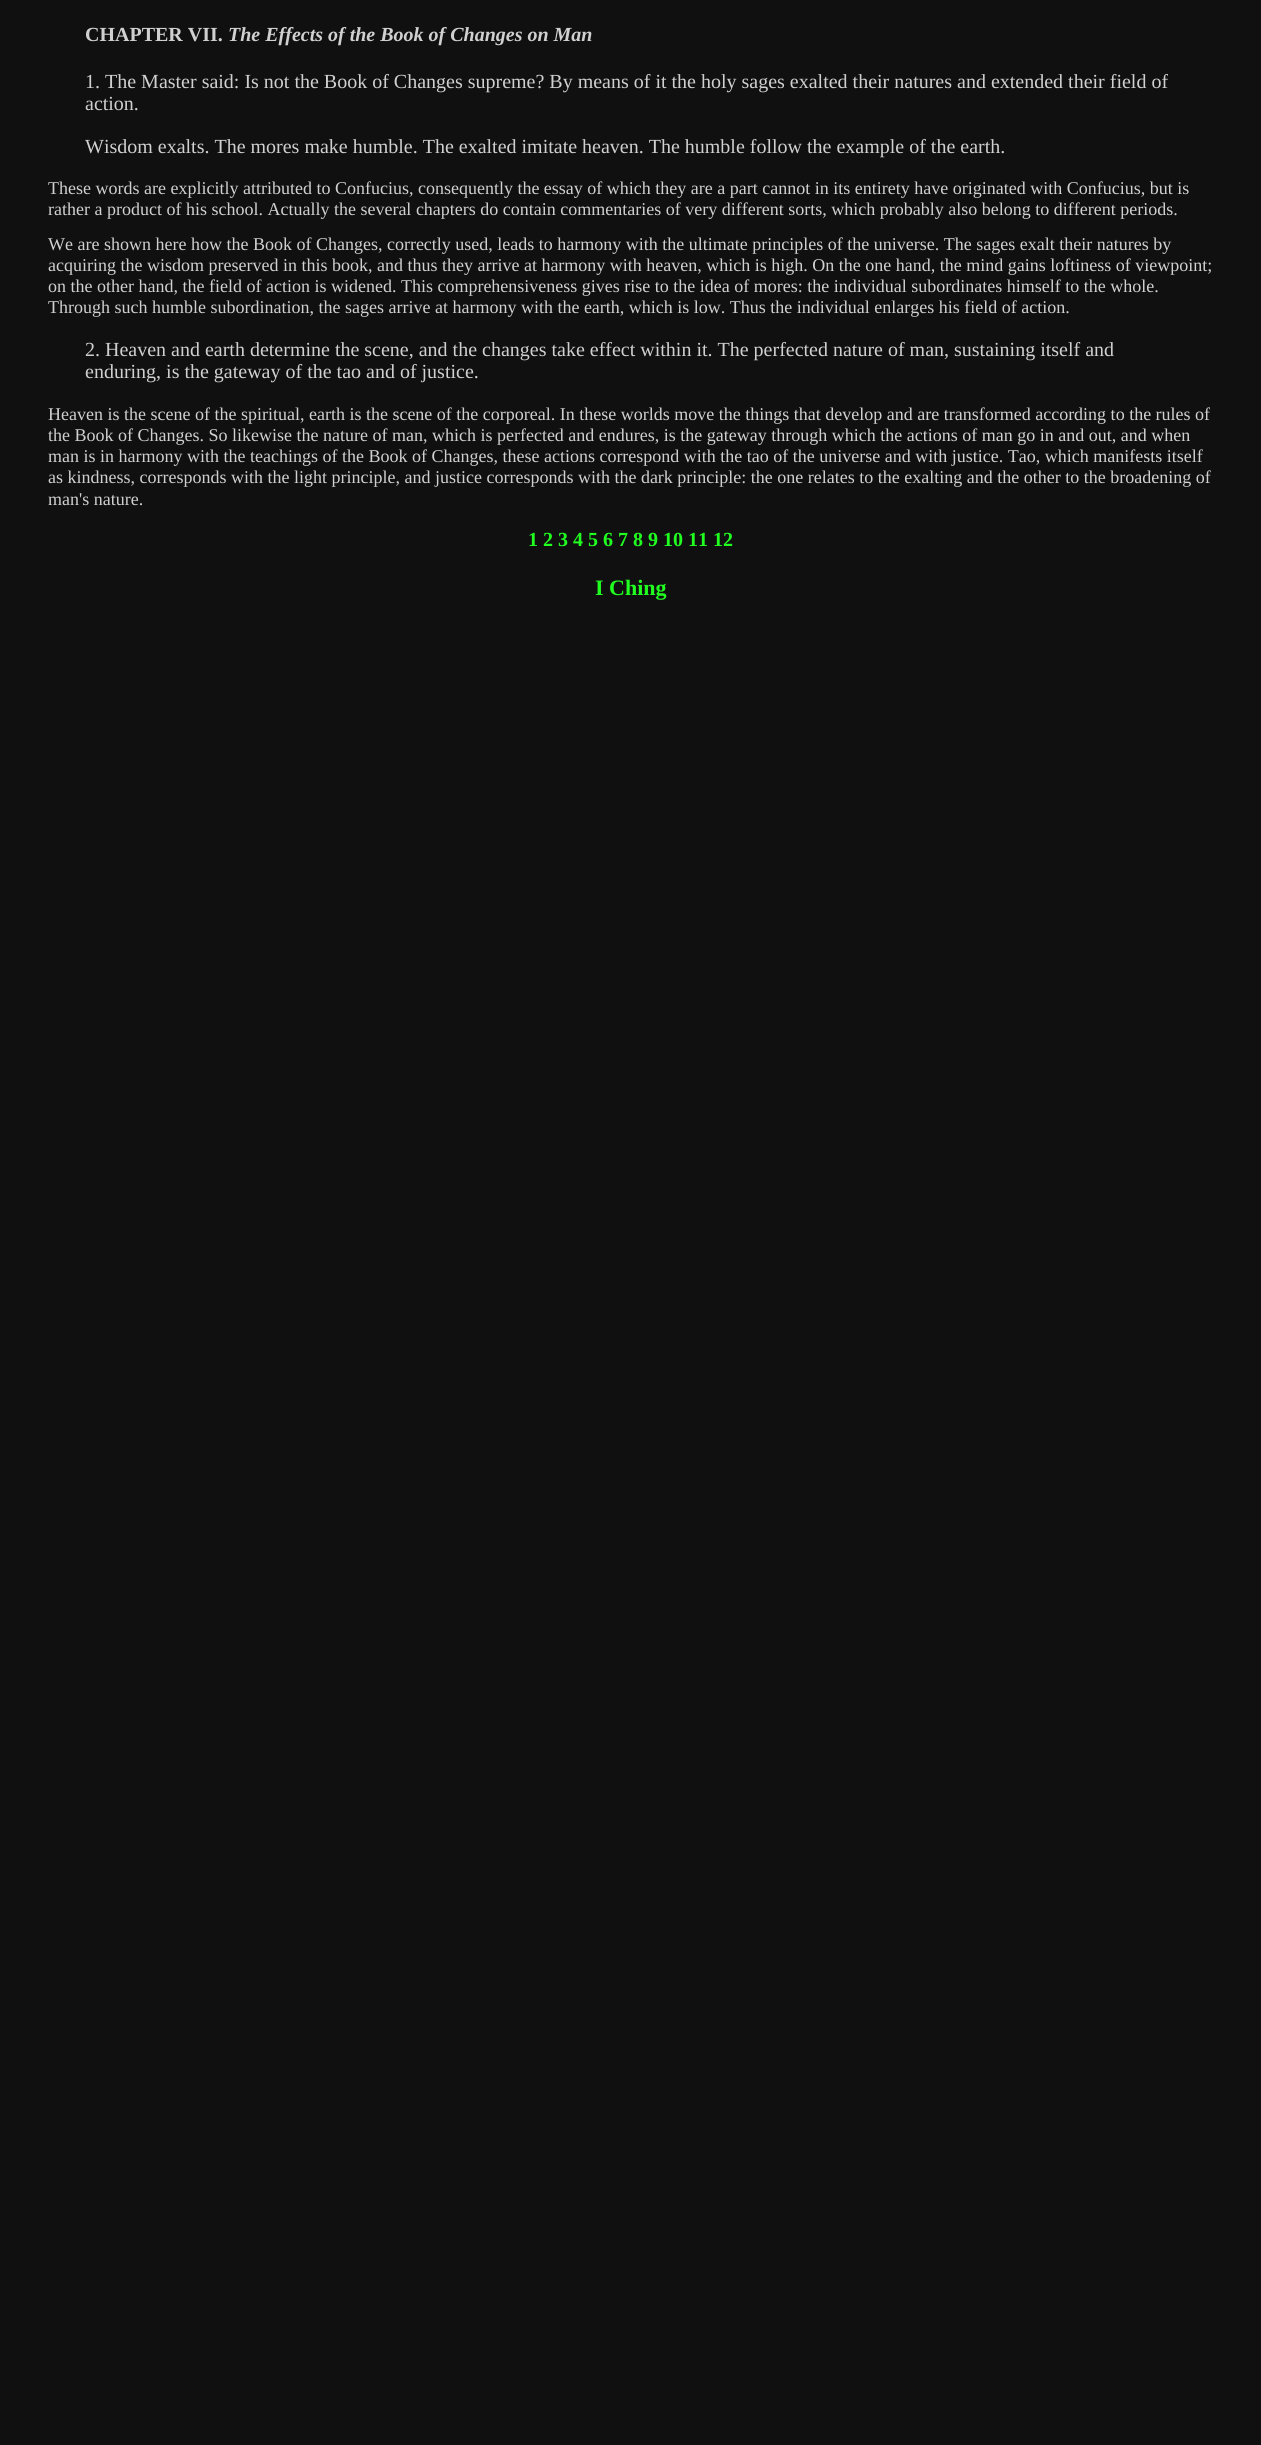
import math
import cairo

surface = cairo.ImageSurface(cairo.FORMAT_RGB24, 1261, 2445)
cr = cairo.Context(surface)
options = cairo.FontOptions()
options.set_hint_metrics(cairo.HINT_METRICS_OFF)
options.set_hint_style(cairo.HINT_STYLE_NONE)
cr.set_font_options(options)
cr.set_miter_limit(4)


def rgb(code):
    cr.set_source_rgb(*(v / 255 for v in bytes.fromhex(code[-6:])))


rgb("#101010")
cr.paint()
cr.select_font_face("Liberation Serif", cairo.FONT_SLANT_NORMAL, cairo.FONT_WEIGHT_BOLD)
cr.set_font_size(20)
rgb("#d0d0d0")
cr.move_to(85, 41)
cr.show_text("CHAPTER VII.")
cr.select_font_face("Liberation Serif", cairo.FONT_SLANT_ITALIC, cairo.FONT_WEIGHT_BOLD)
cr.move_to(228, 41)
cr.show_text("The Effects of the Book of Changes on Man")
cr.select_font_face("Liberation Serif")
for x, y, s in [
    (85, 88, "1. The Master said: Is not the Book of Changes supreme? By means of it the holy sages exalted their natures and extended their field of"),
    (85, 110, "action."),
    (85, 153, "Wisdom exalts. The mores make humble. The exalted imitate heaven. The humble follow the example of the earth."),
]:
    cr.move_to(x, y)
    cr.show_text(s)
cr.set_font_size(18)
for x, y, s in [
    (48, 194, "These words are explicitly attributed to Confucius, consequently the essay of which they are a part cannot in its entirety have originated with Confucius, but is"),
    (48, 215, "rather a product of his school. Actually the several chapters do contain commentaries of very different sorts, which probably also belong to different periods."),
    (48, 250, "We are shown here how the Book of Changes, correctly used, leads to harmony with the ultimate principles of the universe. The sages exalt their natures by"),
    (48, 271, "acquiring the wisdom preserved in this book, and thus they arrive at harmony with heaven, which is high. On the one hand, the mind gains loftiness of viewpoint;"),
    (48, 292, "on the other hand, the field of action is widened. This comprehensiveness gives rise to the idea of mores: the individual subordinates himself to the whole."),
    (48, 313, "Through such humble subordination, the sages arrive at harmony with the earth, which is low. Thus the individual enlarges his field of action."),
]:
    cr.move_to(x, y)
    cr.show_text(s)
cr.set_font_size(20)
cr.move_to(85, 356)
cr.show_text("2. Heaven and earth determine the scene, and the changes take effect within it. The perfected nature of man, sustaining itself and")
cr.move_to(85, 378)
cr.show_text("enduring, is the gateway of the tao and of justice.")
cr.set_font_size(18)
for x, y, s in [
    (48, 420, "Heaven is the scene of the spiritual, earth is the scene of the corporeal. In these worlds move the things that develop and are transformed according to the rules of"),
    (48, 441, "the Book of Changes. So likewise the nature of man, which is perfected and endures, is the gateway through which the actions of man go in and out, and when"),
    (48, 462, "man is in harmony with the teachings of the Book of Changes, these actions correspond with the tao of the universe and with justice. Tao, which manifests itself"),
    (48, 483, "as kindness, corresponds with the light principle, and justice corresponds with the dark principle: the one relates to the exalting and the other to the broadening of"),
    (48, 505, "man's nature."),
]:
    cr.move_to(x, y)
    cr.show_text(s)
cr.select_font_face("Liberation Serif", cairo.FONT_SLANT_NORMAL, cairo.FONT_WEIGHT_BOLD)
cr.set_font_size(20)
rgb("#20ff20")
cr.move_to(528, 546)
cr.show_text("1 2 3 4 5 6 7 8 9 10 11 12")
cr.set_font_size(22)
cr.move_to(595, 595)
cr.show_text("I Ching")
surface.write_to_png("page.png")
